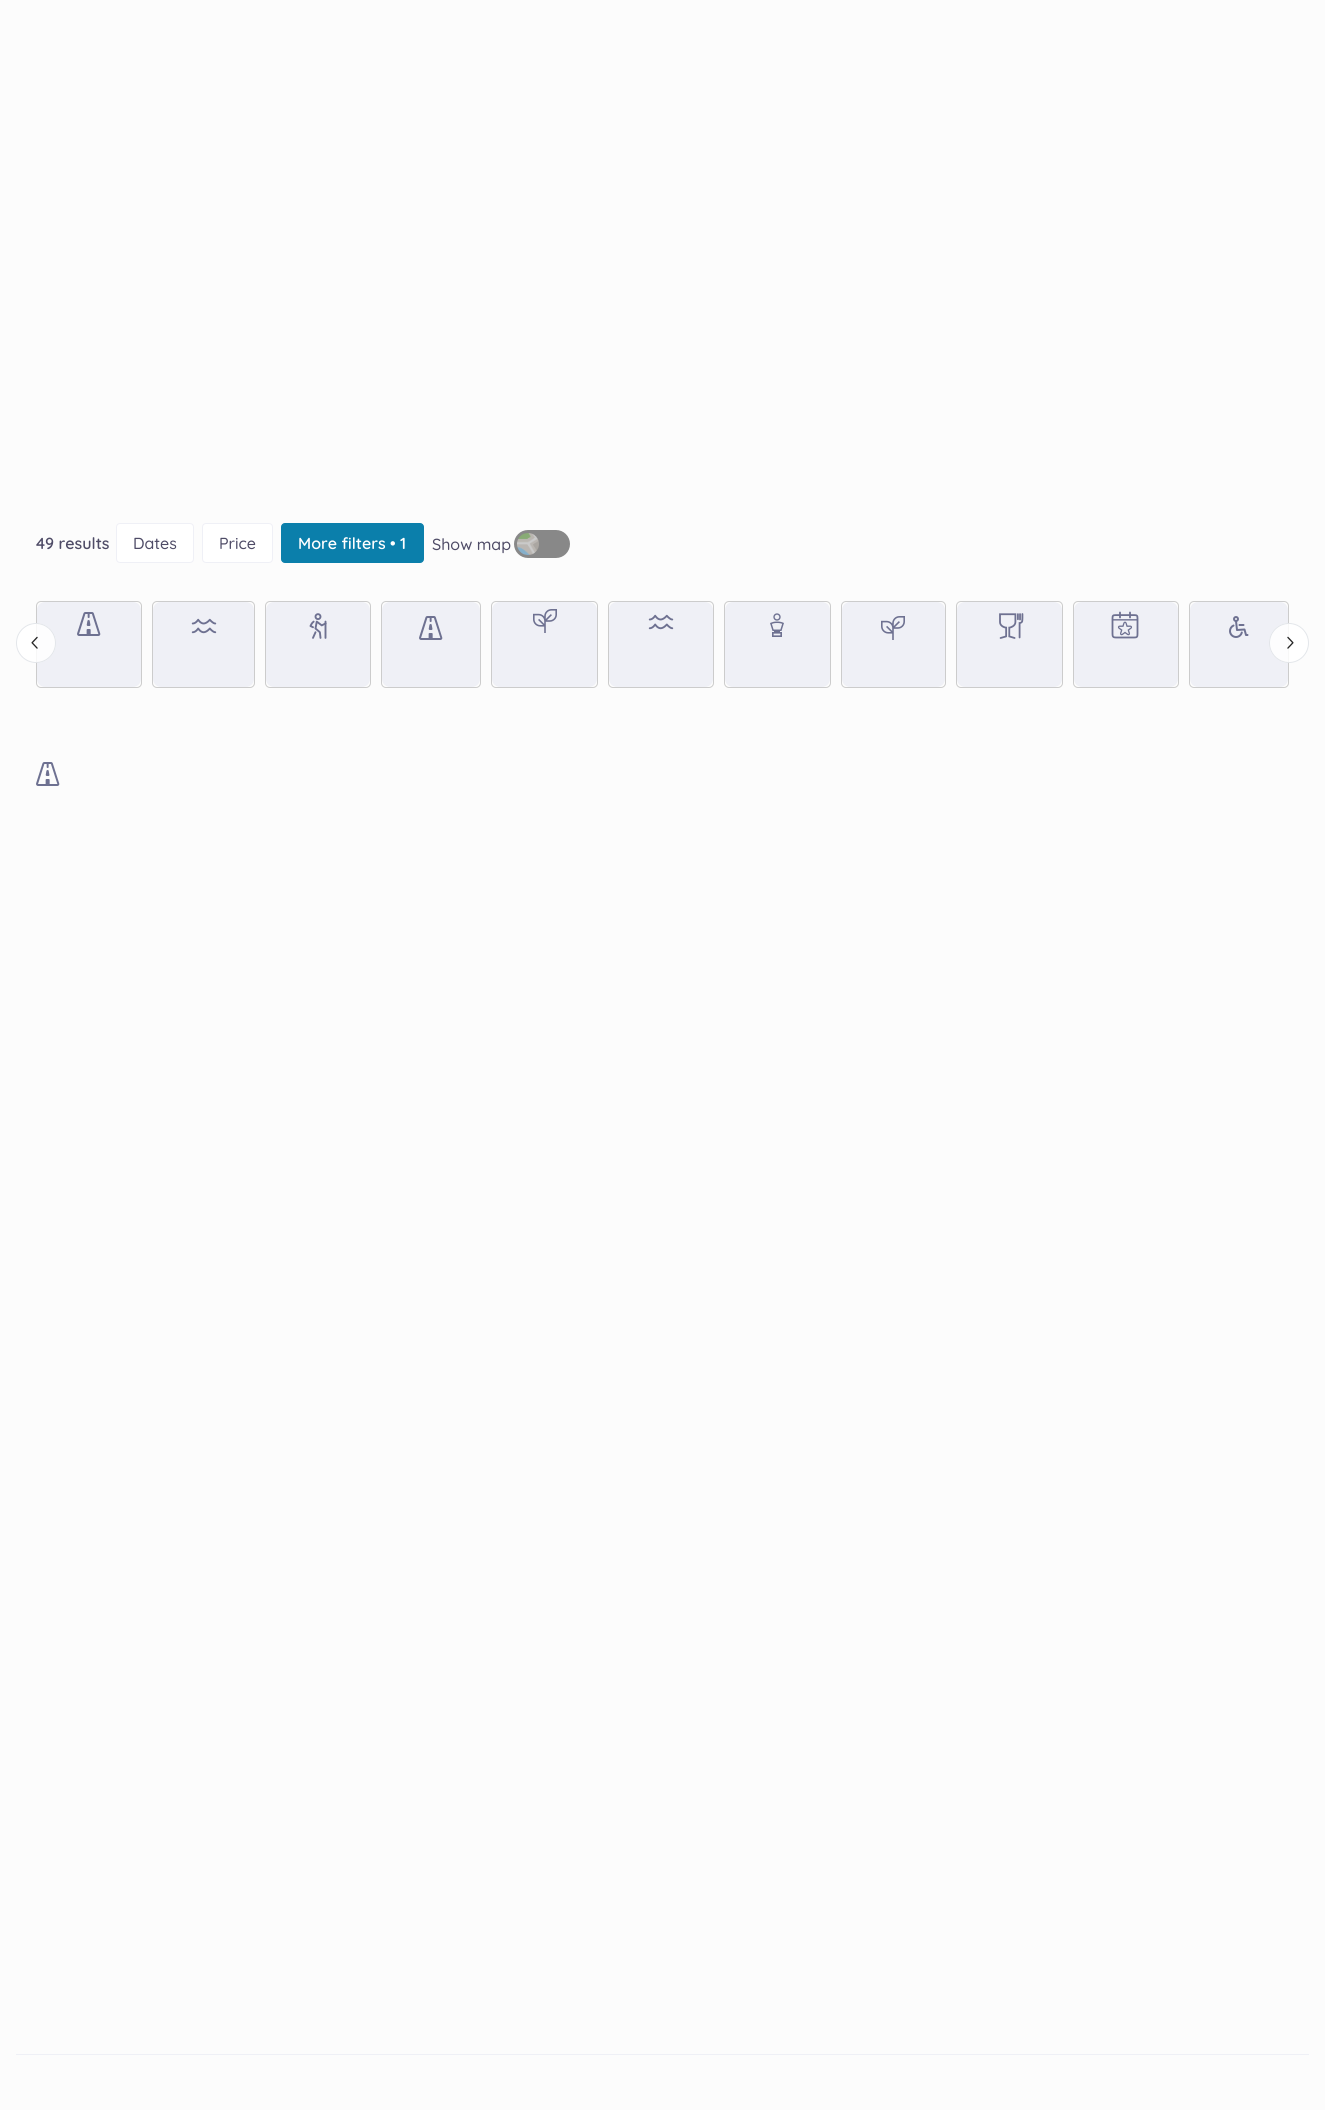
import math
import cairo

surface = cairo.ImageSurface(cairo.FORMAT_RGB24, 1325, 2110)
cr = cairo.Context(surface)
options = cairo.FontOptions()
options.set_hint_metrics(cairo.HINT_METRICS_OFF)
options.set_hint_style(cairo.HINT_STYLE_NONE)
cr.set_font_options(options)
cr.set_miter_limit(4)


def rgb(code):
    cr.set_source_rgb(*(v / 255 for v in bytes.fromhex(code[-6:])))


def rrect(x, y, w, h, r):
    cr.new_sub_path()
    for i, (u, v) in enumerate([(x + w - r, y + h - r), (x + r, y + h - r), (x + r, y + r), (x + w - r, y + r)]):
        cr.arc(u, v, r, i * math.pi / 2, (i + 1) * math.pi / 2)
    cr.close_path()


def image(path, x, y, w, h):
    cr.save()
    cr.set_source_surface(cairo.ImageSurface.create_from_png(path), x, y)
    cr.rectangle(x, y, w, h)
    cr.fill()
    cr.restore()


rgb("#fcfcfc")
cr.paint()
rgb("#ffffff")
rrect(116.5, 523.5, 77, 39, 3.5)
cr.fill_preserve()
rgb("#eff0f6")
cr.set_line_width(1)
cr.stroke()
rgb("#ffffff")
rrect(202.5, 523.5, 70, 39, 3.5)
cr.fill_preserve()
rgb("#eff0f6")
cr.stroke()
rgb("#0b7fab")
rrect(281.5, 523.5, 142, 39, 3.5)
cr.fill_preserve()
cr.stroke()
rgb("#888888")
rrect(514, 530, 56, 28, 14)
cr.fill()
image("img/1.png", 517, 533, 22, 22)
rrect(36.5, 601.5, 105, 86, 4.5)
rgb("#cccccc")
cr.stroke()
rgb("#eff0f6")
rrect(37, 602, 104, 85, 8)
cr.fill()
image("img/2.png", 77, 612, 24, 24)
rrect(152.5, 601.5, 102, 86, 4.5)
rgb("#cccccc")
cr.stroke()
rgb("#eff0f6")
rrect(153, 602, 101, 85, 8)
cr.fill()
image("img/3.png", 191, 618, 26, 16)
rrect(265.5, 601.5, 105, 86, 4.5)
rgb("#cccccc")
cr.stroke()
rgb("#eff0f6")
rrect(266, 602, 104, 85, 8)
cr.fill()
image("img/4.png", 309, 613, 18, 26)
rrect(381.5, 601.5, 99, 86, 4.5)
rgb("#cccccc")
cr.stroke()
rgb("#eff0f6")
rrect(382, 602, 98, 85, 8)
cr.fill()
image("img/2.png", 419, 616, 24, 24)
rrect(491.5, 601.5, 106, 86, 4.5)
rgb("#cccccc")
cr.stroke()
rgb("#eff0f6")
rrect(492, 602, 105, 85, 8)
cr.fill()
image("img/5.png", 533, 609, 24, 24)
rrect(608.5, 601.5, 105, 86, 4.5)
rgb("#cccccc")
cr.stroke()
rgb("#eff0f6")
rrect(609, 602, 104, 85, 8)
cr.fill()
image("img/3.png", 648, 614, 26, 16)
rrect(724.5, 601.5, 106, 86, 4.5)
rgb("#cccccc")
cr.stroke()
rgb("#eff0f6")
rrect(725, 602, 105, 85, 8)
cr.fill()
image("img/6.png", 770, 613, 14, 24)
rrect(841.5, 601.5, 104, 86, 4.5)
rgb("#cccccc")
cr.stroke()
rgb("#eff0f6")
rrect(842, 602, 103, 85, 8)
cr.fill()
image("img/5.png", 881, 616, 24, 24)
rrect(956.5, 601.5, 106, 86, 4.5)
rgb("#cccccc")
cr.stroke()
rgb("#eff0f6")
rrect(957, 602, 105, 85, 8)
cr.fill()
image("img/7.png", 999, 613, 25, 26)
rrect(1073.5, 601.5, 105, 86, 4.5)
rgb("#cccccc")
cr.stroke()
rgb("#eff0f6")
rrect(1074, 602, 104, 85, 8)
cr.fill()
image("img/8.png", 1111, 611, 28, 28)
rrect(1189.5, 601.5, 99, 86, 4.5)
rgb("#cccccc")
cr.stroke()
rgb("#eff0f6")
rrect(1190, 602, 98, 85, 8)
cr.fill()
image("img/9.png", 1229, 616, 20, 22)
cr.set_source_rgba(1, 1, 1, 0.85)
cr.arc(36, 643, 20, 0, 2 * math.pi)
cr.fill()
cr.arc(36, 643, 19.5, 0, 2 * math.pi)
cr.set_source_rgba(0.871, 0.886, 0.902, 0.85)
cr.stroke()
image("img/10.png", 31, 636, 7, 13)
cr.set_source_rgba(1, 1, 1, 0.85)
cr.arc(1289, 643, 20, 0, 2 * math.pi)
cr.fill()
cr.arc(1289, 643, 19.5, 0, 2 * math.pi)
cr.set_source_rgba(0.871, 0.886, 0.902, 0.85)
cr.stroke()
image("img/11.png", 1287, 636, 7, 13)
image("img/12.png", 36, 762, 24, 24)
rgb("#eff0f6")
cr.rectangle(16, 2054, 1293, 1)
cr.fill()
cr.select_font_face("Quicksand SemiBold")
cr.set_font_size(16)
rgb("#4e4b66")
cr.move_to(36, 549)
cr.show_text("49 results")
cr.select_font_face("Quicksand Medium")
cr.move_to(133, 549)
cr.show_text("Dates")
cr.move_to(219, 549)
cr.show_text("Price")
cr.select_font_face("Quicksand SemiBold")
rgb("#ffffff")
cr.move_to(298, 549)
cr.show_text("More filters • 1")
cr.select_font_face("Quicksand Medium")
rgb("#4e4b66")
cr.move_to(432, 550)
cr.show_text("Show map")
surface.write_to_png("page.png")
